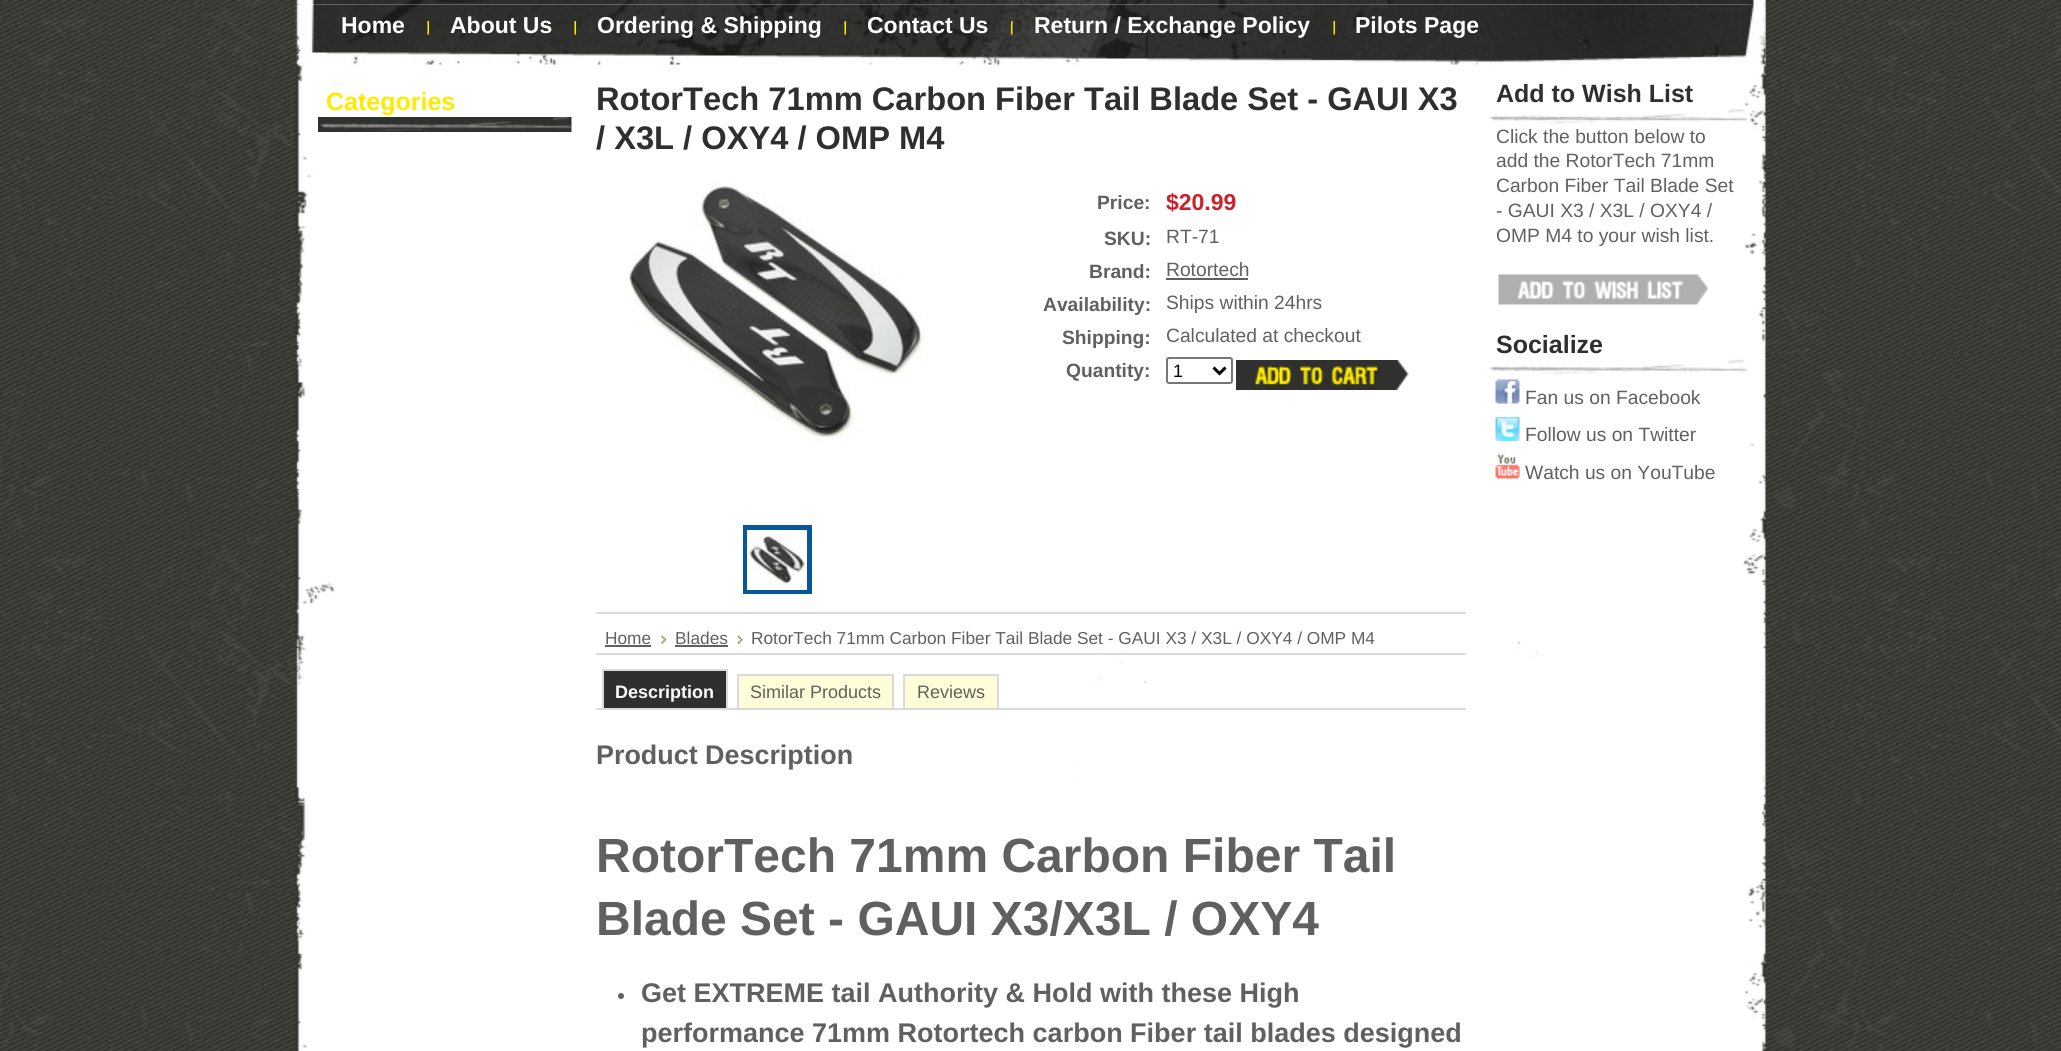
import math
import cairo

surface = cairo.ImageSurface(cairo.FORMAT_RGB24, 2061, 1051)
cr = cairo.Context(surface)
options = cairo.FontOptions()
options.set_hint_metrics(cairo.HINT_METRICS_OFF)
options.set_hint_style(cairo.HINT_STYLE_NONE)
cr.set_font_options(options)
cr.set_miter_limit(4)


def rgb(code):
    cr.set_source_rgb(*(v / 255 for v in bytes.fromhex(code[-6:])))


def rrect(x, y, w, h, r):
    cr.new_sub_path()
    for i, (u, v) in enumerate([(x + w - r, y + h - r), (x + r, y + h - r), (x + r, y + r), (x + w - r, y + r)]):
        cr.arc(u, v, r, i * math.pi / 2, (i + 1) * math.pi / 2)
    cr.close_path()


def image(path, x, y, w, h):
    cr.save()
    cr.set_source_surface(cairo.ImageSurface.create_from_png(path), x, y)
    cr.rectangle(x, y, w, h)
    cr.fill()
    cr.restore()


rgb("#ffffff")
cr.paint()
image("img/1.png", 0, 0, 2061, 1051)
image("img/2.png", 295, 0, 1471, 1051)
image("img/3.png", 295, 0, 1471, 5)
image("img/4.png", 434, 0, 55, 3)
image("img/5.png", 295, 4, 1471, 61)
image("img/6.png", 427, 21, 2, 14)
image("img/7.png", 574, 21, 2, 14)
image("img/8.png", 844, 21, 2, 14)
image("img/9.png", 1011, 21, 2, 14)
image("img/10.png", 1333, 21, 2, 14)
image("img/11.png", 318, 117, 254, 15)
image("img/12.png", 626, 182, 299, 260)
cr.rectangle(744, 526, 67, 67)
rgb("#075899")
cr.stroke()
cr.rectangle(745.5, 528.5, 63, 63)
cr.set_line_width(3)
cr.stroke()
image("img/13.png", 747, 535, 60, 49)
rgb("#606060")
cr.rectangle(1166, 278, 82, 2)
cr.fill()
rrect(1167, 358, 65, 25, 2)
rgb("#767676")
cr.set_line_width(2)
cr.stroke()
cr.new_path()
cr.move_to(1213.5, 367.5)
cr.line_to(1219.5, 373.5)
cr.line_to(1225.5, 367.5)
rgb("#000000")
cr.set_line_width(3)
cr.stroke()
image("img/14.png", 1236, 360, 173, 30)
for x, y, w, h, color in [
    (596, 612, 870, 2, "#dadada"),
    (596, 653, 870, 2, "#dadada"),
    (605, 645, 46, 2, "#606060"),
]:
    rgb(color)
    cr.rectangle(x, y, w, h)
    cr.fill()
image("img/15.png", 661, 635, 5, 9)
cr.rectangle(675, 645, 53, 2)
cr.fill()
image("img/16.png", 738, 635, 5, 9)
rgb("#dadada")
cr.rectangle(596, 708, 870, 2)
cr.fill()
rgb("#2f2f2f")
cr.rectangle(603, 670, 124, 39)
cr.fill_preserve()
rgb("#dadada")
cr.set_line_width(2)
cr.stroke()
rgb("#fffcd8")
cr.rectangle(738, 675, 155, 34)
cr.fill_preserve()
rgb("#dadada")
cr.stroke()
rgb("#fffcd8")
cr.rectangle(904, 675, 94, 34)
cr.fill_preserve()
rgb("#dadada")
cr.stroke()
rgb("#606060")
cr.arc(621, 996, 3, 0, 2 * math.pi)
cr.fill()
image("img/17.png", 1489, 109, 262, 16)
image("img/18.png", 1498, 274, 211, 31)
image("img/19.png", 1489, 359, 259, 16)
image("img/20.png", 1495, 379, 25, 25)
image("img/21.png", 1495, 417, 25, 24)
image("img/22.png", 1495, 454, 25, 25)
cr.select_font_face("Liberation Sans", cairo.FONT_SLANT_NORMAL, cairo.FONT_WEIGHT_BOLD)
cr.set_font_size(23)
rgb("#ffffff")
for x, y, s in [
    (341, 33, "Home"),
    (450, 33, "About Us"),
    (597, 33, "Ordering & Shipping"),
    (867, 33, "Contact Us"),
    (1034, 33, "Return / Exchange Policy"),
    (1355, 33, "Pilots Page"),
]:
    cr.move_to(x, y)
    cr.show_text(s)
cr.set_font_size(25)
rgb("#ffea00")
cr.move_to(326, 110)
cr.show_text("Categories")
cr.set_font_size(32.65)
rgb("#2f2f2f")
cr.move_to(596, 110)
cr.show_text("RotorTech 71mm Carbon Fiber Tail Blade Set - GAUI X3")
cr.move_to(596, 149)
cr.show_text("/ X3L / OXY4 / OMP M4")
cr.set_font_size(19.25)
rgb("#606060")
cr.move_to(1097, 209)
cr.show_text("Price:")
cr.set_font_size(23)
rgb("#cc2128")
cr.move_to(1166, 210)
cr.show_text("$20.99")
cr.set_font_size(19.25)
rgb("#606060")
cr.move_to(1104, 245)
cr.show_text("SKU:")
cr.select_font_face("Liberation Sans")
cr.move_to(1166, 243)
cr.show_text("RT-71")
cr.select_font_face("Liberation Sans", cairo.FONT_SLANT_NORMAL, cairo.FONT_WEIGHT_BOLD)
cr.move_to(1089, 278)
cr.show_text("Brand:")
cr.select_font_face("Liberation Sans")
cr.move_to(1166, 276)
cr.show_text("Rotortech")
cr.select_font_face("Liberation Sans", cairo.FONT_SLANT_NORMAL, cairo.FONT_WEIGHT_BOLD)
cr.move_to(1043, 311)
cr.show_text("Availability:")
cr.select_font_face("Liberation Sans")
cr.move_to(1166, 309)
cr.show_text("Ships within 24hrs")
cr.select_font_face("Liberation Sans", cairo.FONT_SLANT_NORMAL, cairo.FONT_WEIGHT_BOLD)
cr.move_to(1062, 344)
cr.show_text("Shipping:")
cr.select_font_face("Liberation Sans")
cr.move_to(1166, 342)
cr.show_text("Calculated at checkout")
cr.select_font_face("Liberation Sans", cairo.FONT_SLANT_NORMAL, cairo.FONT_WEIGHT_BOLD)
cr.move_to(1066, 377)
cr.show_text("Quantity:")
cr.select_font_face("Liberation Sans")
cr.set_font_size(18)
rgb("#000000")
cr.move_to(1173, 377)
cr.show_text("1")
cr.set_font_size(17.3)
rgb("#606060")
for x, y, s in [
    (605, 644, "Home"),
    (675, 644, "Blades"),
    (751, 644, "RotorTech 71mm Carbon Fiber Tail Blade Set - GAUI X3 / X3L / OXY4 / OMP M4"),
]:
    cr.move_to(x, y)
    cr.show_text(s)
cr.select_font_face("Liberation Sans", cairo.FONT_SLANT_NORMAL, cairo.FONT_WEIGHT_BOLD)
cr.set_font_size(18)
rgb("#ffffff")
cr.move_to(615, 698)
cr.show_text("Description")
cr.select_font_face("Liberation Sans")
rgb("#606060")
cr.move_to(750, 698)
cr.show_text("Similar Products")
cr.move_to(917, 698)
cr.show_text("Reviews")
cr.select_font_face("Liberation Sans", cairo.FONT_SLANT_NORMAL, cairo.FONT_WEIGHT_BOLD)
cr.set_font_size(26.9)
cr.move_to(596, 764)
cr.show_text("Product Description")
cr.set_font_size(48)
cr.move_to(596, 872)
cr.show_text("RotorTech 71mm Carbon Fiber Tail")
cr.move_to(596, 935)
cr.show_text("Blade Set - GAUI X3/X3L / OXY4")
cr.set_font_size(27)
cr.move_to(641, 1002)
cr.show_text("Get EXTREME tail Authority & Hold with these High")
cr.move_to(641, 1042)
cr.show_text("performance 71mm Rotortech carbon Fiber tail blades designed")
cr.set_font_size(25)
rgb("#2f2f2f")
cr.move_to(1496, 102)
cr.show_text("Add to Wish List")
cr.select_font_face("Liberation Sans")
cr.set_font_size(19.25)
rgb("#606060")
for x, y, s in [
    (1496, 143, "Click the button below to"),
    (1496, 167, "add the RotorTech 71mm"),
    (1496, 192, "Carbon Fiber Tail Blade Set"),
    (1496, 217, "- GAUI X3 / X3L / OXY4 /"),
    (1496, 242, "OMP M4 to your wish list."),
]:
    cr.move_to(x, y)
    cr.show_text(s)
cr.select_font_face("Liberation Sans", cairo.FONT_SLANT_NORMAL, cairo.FONT_WEIGHT_BOLD)
cr.set_font_size(25)
rgb("#2f2f2f")
cr.move_to(1496, 353)
cr.show_text("Socialize")
cr.select_font_face("Liberation Sans")
cr.set_font_size(19.25)
rgb("#606060")
for x, y, s in [
    (1525, 404, "Fan us on Facebook"),
    (1525, 441, "Follow us on Twitter"),
    (1525, 479, "Watch us on YouTube"),
]:
    cr.move_to(x, y)
    cr.show_text(s)
surface.write_to_png("page.png")
